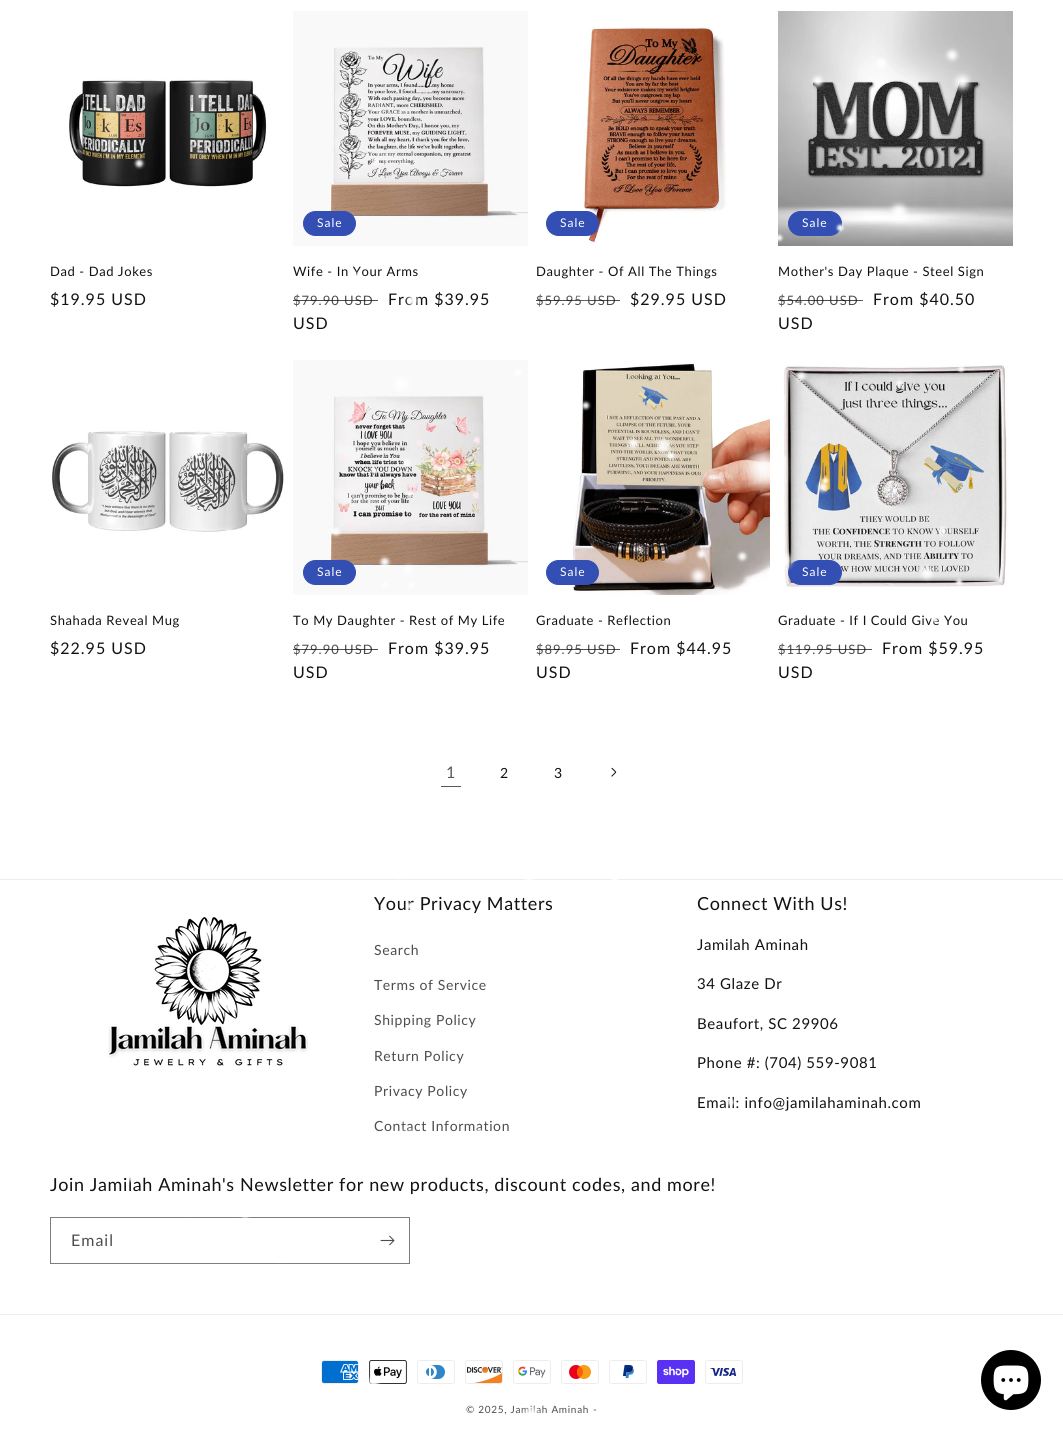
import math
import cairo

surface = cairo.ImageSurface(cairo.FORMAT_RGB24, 1063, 1431)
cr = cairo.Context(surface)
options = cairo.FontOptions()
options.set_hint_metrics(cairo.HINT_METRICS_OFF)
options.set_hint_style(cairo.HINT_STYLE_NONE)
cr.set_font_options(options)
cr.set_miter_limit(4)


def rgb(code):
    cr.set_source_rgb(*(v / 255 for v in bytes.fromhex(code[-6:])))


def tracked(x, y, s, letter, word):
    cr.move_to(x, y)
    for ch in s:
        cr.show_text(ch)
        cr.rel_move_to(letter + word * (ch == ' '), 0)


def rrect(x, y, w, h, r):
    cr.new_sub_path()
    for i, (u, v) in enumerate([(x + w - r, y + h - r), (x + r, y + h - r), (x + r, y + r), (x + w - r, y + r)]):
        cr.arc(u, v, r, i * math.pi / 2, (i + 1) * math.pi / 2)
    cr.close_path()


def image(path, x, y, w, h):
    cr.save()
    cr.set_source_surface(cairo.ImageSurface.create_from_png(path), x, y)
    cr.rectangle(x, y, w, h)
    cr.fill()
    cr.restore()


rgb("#ffffff")
cr.paint()
image("img/2.png", 50, 11, 235, 235)
image("img/3.png", 293, 11, 235, 235)
rgb("#334fb4")
rrect(303.5, 211.5, 52, 24, 12)
cr.fill_preserve()
cr.set_line_width(1)
cr.stroke()
image("img/4.png", 536, 11, 234, 235)
rrect(546.5, 211.5, 52, 24, 12)
cr.fill_preserve()
cr.stroke()
image("img/5.png", 778, 11, 235, 235)
rrect(788.5, 211.5, 53, 24, 12)
cr.fill_preserve()
cr.stroke()
image("img/6.png", 50, 360, 235, 235)
image("img/7.png", 293, 360, 235, 235)
rrect(303.5, 560.5, 52, 24, 12)
cr.fill_preserve()
cr.stroke()
image("img/8.png", 536, 360, 234, 235)
rrect(546.5, 560.5, 52, 24, 12)
cr.fill_preserve()
cr.stroke()
image("img/9.png", 778, 360, 235, 235)
rrect(788.5, 560.5, 53, 24, 12)
cr.fill_preserve()
cr.stroke()
rgb("#595959")
cr.rectangle(441, 786, 20, 1)
cr.fill()
image("img/10.png", 611, 767, 6, 10)
rgb("#ececec")
cr.rectangle(0, 879, 1063, 1)
cr.fill()
image("img/11.png", 108, 917, 200, 149)
cr.rectangle(50.5, 1217.5, 359, 46)
rgb("#7d7d7d")
cr.stroke()
image("img/12.png", 380, 1235, 15, 11)
rgb("#ececec")
cr.rectangle(0, 1314, 1063, 1)
cr.fill()
image("img/13.png", 321, 1360, 38, 24)
image("img/14.png", 369, 1360, 38, 24)
image("img/15.png", 417, 1360, 38, 24)
image("img/16.png", 465, 1360, 38, 24)
image("img/17.png", 513, 1360, 38, 24)
image("img/18.png", 561, 1360, 38, 24)
image("img/19.png", 609, 1360, 38, 24)
image("img/20.png", 657, 1360, 38, 24)
image("img/21.png", 705, 1360, 38, 24)
rgb("#000000")
cr.arc(1011, 1380, 30, 0, 2 * math.pi)
cr.fill()
image("img/22.png", 993, 1365, 36, 36)
cr.select_font_face("Lato")
cr.set_font_size(13)
rgb("#121212")
tracked(50, 276, "Dad - Dad Jokes", 0.6, 0)
cr.set_font_size(16)
tracked(50, 305, "$19.95 USD", 1, 0)
cr.set_font_size(12)
rgb("#ffffff")
tracked(317, 227, "Sale", 1, 0)
cr.set_font_size(13)
rgb("#121212")
tracked(293, 276, "Wife - In Your Arms", 0.6, 0)
rgb("#4d4d4d")
tracked(293, 305, "$79.90 USD", 1, 0)
cr.set_source_rgba(0.071, 0.071, 0.071, 0.75)
cr.rectangle(293, 300, 85, 1)
cr.fill()
cr.set_font_size(16)
rgb("#121212")
tracked(388, 305, "From $39.95", 1, 0)
tracked(293, 329, "USD", 1, 0)
cr.set_font_size(12)
rgb("#ffffff")
tracked(560, 227, "Sale", 1, 0)
cr.set_font_size(13)
rgb("#121212")
tracked(536, 276, "Daughter - Of All The Things", 0.6, 0)
rgb("#4d4d4d")
tracked(536, 305, "$59.95 USD", 1, 0)
cr.set_source_rgba(0.071, 0.071, 0.071, 0.75)
cr.rectangle(536, 300, 84, 1)
cr.fill()
cr.set_font_size(16)
rgb("#121212")
tracked(630, 305, "$29.95 USD", 1, 0)
cr.set_font_size(12)
rgb("#ffffff")
tracked(802, 227, "Sale", 1, 0)
cr.set_font_size(13)
rgb("#121212")
tracked(778, 276, "Mother's Day Plaque - Steel Sign", 0.6, 0)
rgb("#4d4d4d")
tracked(778, 305, "$54.00 USD", 1, 0)
cr.set_source_rgba(0.071, 0.071, 0.071, 0.75)
cr.rectangle(778, 300, 85, 1)
cr.fill()
cr.set_font_size(16)
rgb("#121212")
tracked(873, 305, "From $40.50", 1, 0)
tracked(778, 329, "USD", 1, 0)
cr.set_font_size(13)
tracked(50, 625, "Shahada Reveal Mug", 0.6, 0)
cr.set_font_size(16)
tracked(50, 654, "$22.95 USD", 1, 0)
cr.set_font_size(12)
rgb("#ffffff")
tracked(317, 576, "Sale", 1, 0)
cr.set_font_size(13)
rgb("#121212")
tracked(293, 625, "To My Daughter - Rest of My Life", 0.6, 0)
rgb("#4d4d4d")
tracked(293, 654, "$79.90 USD", 1, 0)
cr.set_source_rgba(0.071, 0.071, 0.071, 0.75)
cr.rectangle(293, 649, 85, 1)
cr.fill()
cr.set_font_size(16)
rgb("#121212")
tracked(388, 654, "From $39.95", 1, 0)
tracked(293, 678, "USD", 1, 0)
cr.set_font_size(12)
rgb("#ffffff")
tracked(560, 576, "Sale", 1, 0)
cr.set_font_size(13)
rgb("#121212")
tracked(536, 625, "Graduate - Reflection", 0.6, 0)
rgb("#4d4d4d")
tracked(536, 654, "$89.95 USD", 1, 0)
cr.set_source_rgba(0.071, 0.071, 0.071, 0.75)
cr.rectangle(536, 649, 84, 1)
cr.fill()
cr.set_font_size(16)
rgb("#121212")
tracked(630, 654, "From $44.95", 1, 0)
tracked(536, 678, "USD", 1, 0)
cr.set_font_size(12)
rgb("#ffffff")
tracked(802, 576, "Sale", 1, 0)
cr.set_font_size(13)
rgb("#121212")
tracked(778, 625, "Graduate - If I Could Give You", 0.6, 0)
rgb("#4d4d4d")
tracked(778, 654, "$119.95 USD", 1, 0)
cr.set_source_rgba(0.071, 0.071, 0.071, 0.75)
cr.rectangle(778, 649, 94, 1)
cr.fill()
cr.set_font_size(16)
rgb("#121212")
tracked(882, 654, "From $59.95", 1, 0)
tracked(778, 678, "USD", 1, 0)
rgb("#595959")
tracked(446, 778, "1", 0.6, 0)
cr.set_font_size(14)
rgb("#121212")
tracked(500, 778, "2", 0.6, 0)
tracked(554, 778, "3", 0.6, 0)
cr.set_font_size(18)
tracked(374, 910, "Your Privacy Matters", 0.6, 0)
cr.set_font_size(14)
rgb("#4d4d4d")
for x, y, s in [
    (374, 955, "Search"),
    (374, 990, "Terms of Service"),
    (374, 1025, "Shipping Policy"),
    (374, 1061, "Return Policy"),
    (374, 1096, "Privacy Policy"),
    (374, 1131, "Contact Information"),
]:
    tracked(x, y, s, 0.6, 0)
cr.set_font_size(18)
rgb("#121212")
tracked(697, 910, "Connect With Us!", 0.6, 0)
cr.set_font_size(15)
for x, y, s in [
    (697, 950, "Jamilah Aminah"),
    (697, 989, "34 Glaze Dr"),
    (697, 1029, "Beaufort, SC 29906"),
    (697, 1068, "Phone #: (704) 559-9081"),
    (697, 1108, "Email: info@jamilahaminah.com"),
]:
    tracked(x, y, s, 0.6, 0)
cr.set_font_size(18)
tracked(50, 1191, "Join Jamilah Aminah's Newsletter for new products, discount codes, and more!", 0.6, 0)
cr.set_font_size(16)
rgb("#4d4d4d")
tracked(71, 1246, "Email", 1, 0)
cr.set_font_size(10)
tracked(466, 1413, "© 2025, Jamilah Aminah", 0.7, 0)
tracked(593, 1413, "-", 0.7, 0)
image("img/1.png", 98, 36, 876, 1377)
surface.write_to_png("page.png")
